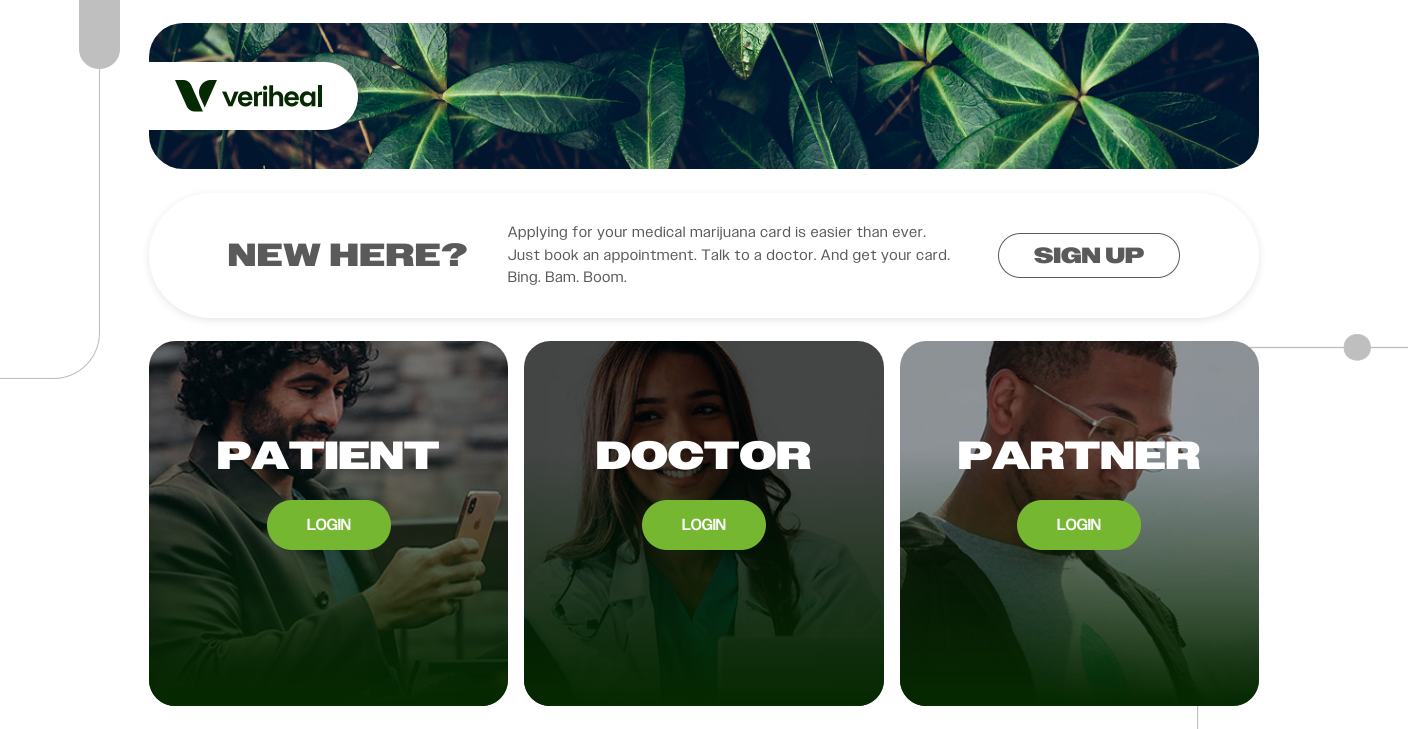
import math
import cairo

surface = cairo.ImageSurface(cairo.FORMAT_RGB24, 1408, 729)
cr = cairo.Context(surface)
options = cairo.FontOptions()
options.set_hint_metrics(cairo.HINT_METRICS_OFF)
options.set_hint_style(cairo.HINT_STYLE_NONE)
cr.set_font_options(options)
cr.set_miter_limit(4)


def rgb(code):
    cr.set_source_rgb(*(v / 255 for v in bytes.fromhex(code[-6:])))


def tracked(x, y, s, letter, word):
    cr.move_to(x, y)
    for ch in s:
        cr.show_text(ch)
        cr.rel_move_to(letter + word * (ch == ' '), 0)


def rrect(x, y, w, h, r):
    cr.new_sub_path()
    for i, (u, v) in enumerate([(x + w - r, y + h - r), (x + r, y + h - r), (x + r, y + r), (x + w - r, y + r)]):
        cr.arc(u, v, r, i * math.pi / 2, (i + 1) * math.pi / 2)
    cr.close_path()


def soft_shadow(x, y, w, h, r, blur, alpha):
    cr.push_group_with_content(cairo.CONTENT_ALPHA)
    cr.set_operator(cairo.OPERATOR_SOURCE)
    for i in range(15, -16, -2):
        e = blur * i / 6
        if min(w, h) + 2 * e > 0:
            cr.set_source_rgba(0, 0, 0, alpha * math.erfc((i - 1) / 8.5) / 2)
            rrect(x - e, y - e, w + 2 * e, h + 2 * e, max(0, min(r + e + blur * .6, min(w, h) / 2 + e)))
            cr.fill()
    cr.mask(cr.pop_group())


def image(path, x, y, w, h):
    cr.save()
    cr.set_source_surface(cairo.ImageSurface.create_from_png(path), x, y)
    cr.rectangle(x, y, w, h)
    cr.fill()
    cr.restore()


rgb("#ffffff")
cr.paint()
cr.save()
cr.rectangle(0, 0, 120, 379)
cr.clip()
cr.new_path()
cr.move_to(99.5, 1)
cr.line_to(99.5, 332.5)
cr.curve_to(99.5, 358, 79, 378.5, 53.5, 378.5)
cr.line_to(0, 378.5)
rgb("#bfbfbf")
cr.set_line_width(1.1)
cr.stroke()
cr.restore()
rgb("#bfbfbf")
cr.new_path()
cr.move_to(120, 0)
cr.line_to(120, 49)
cr.curve_to(120, 60, 111, 69, 99, 69)
cr.curve_to(88, 69, 79, 60, 79, 49)
cr.line_to(79, 0)
cr.close_path()
cr.fill()
image("img/1.png", 149, 23, 1110, 146)
rgb("#ffffff")
cr.new_path()
cr.move_to(149, 62)
cr.line_to(324, 62)
cr.curve_to(343, 62, 358, 77, 358, 96)
cr.curve_to(358, 115, 343, 130, 324, 130)
cr.line_to(149, 130)
cr.close_path()
cr.fill()
image("img/2.png", 175, 80, 147, 32)
rgb("#000000")
soft_shadow(149, 195, 1110, 125, 62.5, 4, 0.1)
rgb("#ffffff")
rrect(149, 193, 1110, 125, 62.5)
cr.fill()
rrect(998.5, 233.5, 181, 44, 22)
rgb("#5a5a5a")
cr.set_line_width(1)
cr.stroke()
image("img/3.png", 149, 341, 359, 365)
gradient = cairo.LinearGradient(329, 341, 329, 706)
gradient.add_color_stop_rgba(0.3, 0.02, 0.161, 0, 0)
gradient.add_color_stop_rgba(1, 0.02, 0.161, 0, 1)
cr.set_source(gradient)
rrect(149, 341, 359, 365, 26)
cr.fill()
rgb("#76b732")
rrect(267, 500, 124, 50, 25)
cr.fill()
image("img/4.png", 524, 341, 360, 365)
gradient = cairo.LinearGradient(704, 341, 704, 706)
gradient.add_color_stop_rgba(0.3, 0.02, 0.161, 0, 0)
gradient.add_color_stop_rgba(1, 0.02, 0.161, 0, 1)
cr.set_source(gradient)
rrect(524, 341, 360, 365, 26)
cr.fill()
rgb("#76b732")
rrect(642, 500, 124, 50, 25)
cr.fill()
cr.save()
cr.rectangle(1197, 334, 211, 395)
cr.clip()
cr.new_path()
cr.move_to(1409, 347.5)
cr.line_to(1197.5, 347.5)
cr.line_to(1197.5, 729)
rgb("#bfbfbf")
cr.set_line_width(1.3)
cr.stroke()
cr.restore()
image("img/5.png", 900, 341, 359, 365)
gradient = cairo.LinearGradient(1080, 341, 1080, 706)
gradient.add_color_stop_rgba(0.3, 0.02, 0.161, 0, 0)
gradient.add_color_stop_rgba(1, 0.02, 0.161, 0, 1)
cr.set_source(gradient)
rrect(900, 341, 359, 365, 26)
cr.fill()
rgb("#76b732")
rrect(1017, 500, 124, 50, 25)
cr.fill()
rgb("#bfbfbf")
cr.new_path()
cr.move_to(1344, 347.5)
cr.curve_to(1344, 364.5, 1370.5, 364.5, 1370.5, 347.5)
cr.curve_to(1370.5, 330, 1344, 330, 1344, 347.5)
cr.close_path()
cr.fill_preserve()
cr.set_line_width(0.7)
cr.stroke()
cr.select_font_face("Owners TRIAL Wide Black")
cr.set_font_size(32)
rgb("#5a5a5a")
tracked(228, 266, "NEW HERE?", 1, 0)
cr.select_font_face("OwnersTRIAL")
cr.set_font_size(15)
for x, y, s in [
    (508, 237, "Applying for your medical marijuana card is easier than ever."),
    (508, 260, "Just book an appointment. Talk to a doctor. And get your card."),
    (508, 282, "Bing. Bam. Boom."),
]:
    tracked(x, y, s, 1, 0)
cr.select_font_face("Owners TRIAL Wide Black")
cr.set_font_size(22)
cr.move_to(1034, 263)
cr.show_text("SIGN UP")
cr.set_font_size(39.25)
rgb("#ffffff")
cr.move_to(217, 469)
cr.show_text("PATIENT")
cr.select_font_face("OwnersTRIAL Medium")
cr.set_font_size(16)
cr.move_to(307, 530)
cr.show_text("LOGIN")
cr.select_font_face("Owners TRIAL Wide Black")
cr.set_font_size(39.25)
cr.move_to(596, 469)
cr.show_text("DOCTOR")
cr.select_font_face("OwnersTRIAL Medium")
cr.set_font_size(16)
cr.move_to(682, 530)
cr.show_text("LOGIN")
cr.select_font_face("Owners TRIAL Wide Black")
cr.set_font_size(39.25)
cr.move_to(958, 469)
cr.show_text("PARTNER")
cr.select_font_face("OwnersTRIAL Medium")
cr.set_font_size(16)
cr.move_to(1057, 530)
cr.show_text("LOGIN")
surface.write_to_png("page.png")
